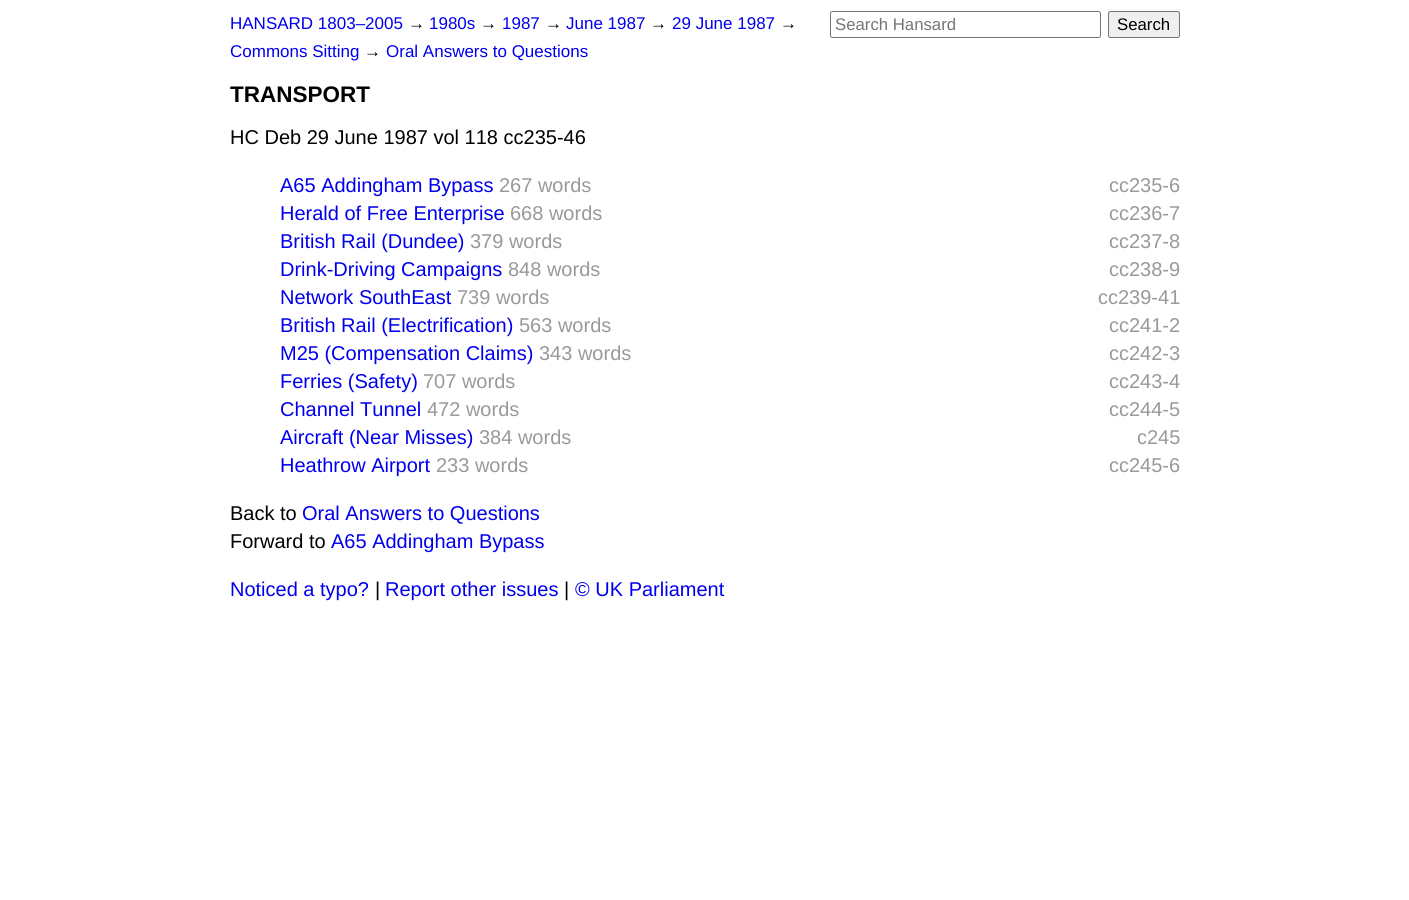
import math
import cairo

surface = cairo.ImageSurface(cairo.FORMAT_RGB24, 1409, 900)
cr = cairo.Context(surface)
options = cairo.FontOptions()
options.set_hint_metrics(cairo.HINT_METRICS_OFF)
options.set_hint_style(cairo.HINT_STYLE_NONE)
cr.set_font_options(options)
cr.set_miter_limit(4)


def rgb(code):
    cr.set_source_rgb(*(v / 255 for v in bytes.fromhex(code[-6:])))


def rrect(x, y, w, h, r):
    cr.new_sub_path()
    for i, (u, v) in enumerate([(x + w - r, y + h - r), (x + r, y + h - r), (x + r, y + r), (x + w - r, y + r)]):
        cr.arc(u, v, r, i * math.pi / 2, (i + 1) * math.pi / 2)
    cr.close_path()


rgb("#ffffff")
cr.paint()
rrect(830.5, 11.5, 270, 26, 2)
rgb("#767676")
cr.set_line_width(1)
cr.stroke()
rgb("#efefef")
rrect(1108.5, 11.5, 71, 26, 2)
cr.fill_preserve()
rgb("#767676")
cr.stroke()
cr.select_font_face("Liberation Sans")
cr.set_font_size(17)
rgb("#0000ee")
cr.move_to(230, 29)
cr.show_text("HANSARD 1803–2005")
rgb("#000000")
cr.move_to(408, 29)
cr.show_text("→")
rgb("#0000ee")
cr.move_to(429, 29)
cr.show_text("1980s")
rgb("#000000")
cr.move_to(480, 29)
cr.show_text("→")
rgb("#0000ee")
cr.move_to(502, 29)
cr.show_text("1987")
rgb("#000000")
cr.move_to(545, 29)
cr.show_text("→")
rgb("#0000ee")
cr.move_to(566, 29)
cr.show_text("June 1987")
rgb("#000000")
cr.move_to(650, 29)
cr.show_text("→")
rgb("#0000ee")
cr.move_to(672, 29)
cr.show_text("29 June 1987")
rgb("#000000")
cr.move_to(780, 29)
cr.show_text("→")
rgb("#0000ee")
cr.move_to(230, 57)
cr.show_text("Commons Sitting")
rgb("#000000")
cr.move_to(364, 57)
cr.show_text("→")
rgb("#0000ee")
cr.move_to(386, 57)
cr.show_text("Oral Answers to Questions")
cr.set_font_size(16.75)
rgb("#757575")
cr.move_to(835, 30)
cr.show_text("Search Hansard")
rgb("#000000")
cr.move_to(1117, 30)
cr.show_text("Search")
cr.select_font_face("Liberation Sans", cairo.FONT_SLANT_NORMAL, cairo.FONT_WEIGHT_BOLD)
cr.set_font_size(22.5)
cr.move_to(230, 102)
cr.show_text("TRANSPORT")
cr.select_font_face("Liberation Sans")
cr.set_font_size(20)
cr.move_to(230, 144)
cr.show_text("HC Deb 29 June 1987 vol 118 cc235-46")
rgb("#0000ee")
cr.move_to(280, 192)
cr.show_text("A65 Addingham Bypass")
rgb("#999999")
cr.move_to(499, 192)
cr.show_text("267 words")
cr.move_to(1109, 192)
cr.show_text("cc235-6")
rgb("#0000ee")
cr.move_to(280, 220)
cr.show_text("Herald of Free Enterprise")
rgb("#999999")
cr.move_to(510, 220)
cr.show_text("668 words")
cr.move_to(1109, 220)
cr.show_text("cc236-7")
rgb("#0000ee")
cr.move_to(280, 248)
cr.show_text("British Rail (Dundee)")
rgb("#999999")
cr.move_to(470, 248)
cr.show_text("379 words")
cr.move_to(1109, 248)
cr.show_text("cc237-8")
rgb("#0000ee")
cr.move_to(280, 276)
cr.show_text("Drink-Driving Campaigns")
rgb("#999999")
cr.move_to(508, 276)
cr.show_text("848 words")
cr.move_to(1109, 276)
cr.show_text("cc238-9")
rgb("#0000ee")
cr.move_to(280, 304)
cr.show_text("Network SouthEast")
rgb("#999999")
cr.move_to(457, 304)
cr.show_text("739 words")
cr.move_to(1098, 304)
cr.show_text("cc239-41")
rgb("#0000ee")
cr.move_to(280, 332)
cr.show_text("British Rail (Electrification)")
rgb("#999999")
cr.move_to(519, 332)
cr.show_text("563 words")
cr.move_to(1109, 332)
cr.show_text("cc241-2")
rgb("#0000ee")
cr.move_to(280, 360)
cr.show_text("M25 (Compensation Claims)")
rgb("#999999")
cr.move_to(539, 360)
cr.show_text("343 words")
cr.move_to(1109, 360)
cr.show_text("cc242-3")
rgb("#0000ee")
cr.move_to(280, 388)
cr.show_text("Ferries (Safety)")
rgb("#999999")
cr.move_to(423, 388)
cr.show_text("707 words")
cr.move_to(1109, 388)
cr.show_text("cc243-4")
rgb("#0000ee")
cr.move_to(280, 416)
cr.show_text("Channel Tunnel")
rgb("#999999")
cr.move_to(427, 416)
cr.show_text("472 words")
cr.move_to(1109, 416)
cr.show_text("cc244-5")
rgb("#0000ee")
cr.move_to(280, 444)
cr.show_text("Aircraft (Near Misses)")
rgb("#999999")
cr.move_to(479, 444)
cr.show_text("384 words")
cr.move_to(1137, 444)
cr.show_text("c245")
rgb("#0000ee")
cr.move_to(280, 472)
cr.show_text("Heathrow Airport")
rgb("#999999")
cr.move_to(436, 472)
cr.show_text("233 words")
cr.move_to(1109, 472)
cr.show_text("cc245-6")
rgb("#000000")
cr.move_to(230, 520)
cr.show_text("Back to")
rgb("#0000ee")
cr.move_to(302, 520)
cr.show_text("Oral Answers to Questions")
rgb("#000000")
cr.move_to(230, 548)
cr.show_text("Forward to")
rgb("#0000ee")
cr.move_to(331, 548)
cr.show_text("A65 Addingham Bypass")
cr.move_to(230, 596)
cr.show_text("Noticed a typo?")
rgb("#000000")
cr.move_to(375, 596)
cr.show_text("|")
rgb("#0000ee")
cr.move_to(385, 596)
cr.show_text("Report other issues")
rgb("#000000")
cr.move_to(564, 596)
cr.show_text("|")
rgb("#0000ee")
cr.move_to(575, 596)
cr.show_text("© UK Parliament")
surface.write_to_png("page.png")
